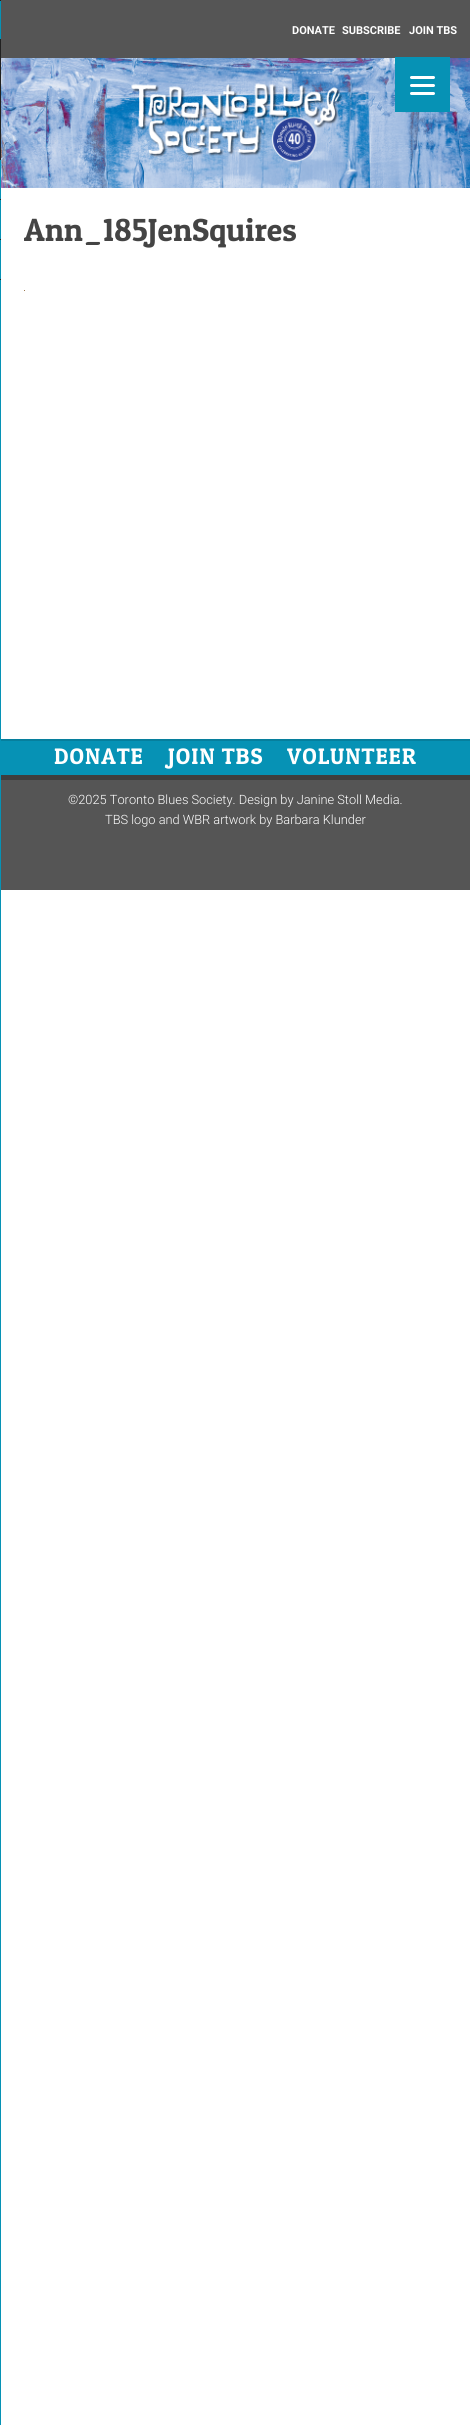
import math
import cairo

surface = cairo.ImageSurface(cairo.FORMAT_RGB24, 470, 2425)
cr = cairo.Context(surface)
options = cairo.FontOptions()
options.set_hint_metrics(cairo.HINT_METRICS_OFF)
options.set_hint_style(cairo.HINT_STYLE_NONE)
cr.set_font_options(options)
cr.set_miter_limit(4)


def rgb(code):
    cr.set_source_rgb(*(v / 255 for v in bytes.fromhex(code[-6:])))


def tracked(x, y, s, letter, word):
    cr.move_to(x, y)
    for ch in s:
        cr.show_text(ch)
        cr.rel_move_to(letter + word * (ch == ' '), 0)


def rrect(x, y, w, h, r):
    cr.new_sub_path()
    for i, (u, v) in enumerate([(x + w - r, y + h - r), (x + r, y + h - r), (x + r, y + r), (x + w - r, y + r)]):
        cr.arc(u, v, r, i * math.pi / 2, (i + 1) * math.pi / 2)
    cr.close_path()


def image(path, x, y, w, h):
    cr.save()
    cr.set_source_surface(cairo.ImageSurface.create_from_png(path), x, y)
    cr.rectangle(x, y, w, h)
    cr.fill()
    cr.restore()


rgb("#ffffff")
cr.paint()
for x, y, w, h, color in [
    (0, 739, 470, 2, "#067f9d"),
    (0, 775, 470, 5, "#3e3e3e"),
    (0, 0, 1, 2425, "#0692b5"),
    (0, 0, 1, 1, "#212121"),
    (0, 39, 1, 1, "#212121"),
    (0, 40, 1, 40, "#212121"),
    (0, 80, 1, 40, "#212121"),
    (0, 120, 1, 40, "#212121"),
    (0, 199, 1, 1, "#212121"),
    (0, 239, 1, 1, "#212121"),
    (0, 279, 1, 1, "#212121"),
    (1, 0, 469, 58, "#555555"),
]:
    rgb(color)
    cr.rectangle(x, y, w, h)
    cr.fill()
image("img/1.png", 1, 58, 469, 130)
rgb("#0692b5")
cr.rectangle(395, 57, 55, 55)
cr.fill()
rgb("#ffffff")
rrect(410, 84, 25, 3, 1.5)
cr.fill()
rrect(410, 76, 25, 3, 1.5)
cr.fill()
rrect(410, 92, 25, 3, 1.5)
cr.fill()
for x, y, w, h, color in [
    (24, 290, 1, 1, "#9b7951"),
    (1, 741, 469, 34, "#0692b5"),
    (1, 780, 469, 110, "#555555"),
]:
    rgb(color)
    cr.rectangle(x, y, w, h)
    cr.fill()
cr.select_font_face("Roboto", cairo.FONT_SLANT_NORMAL, cairo.FONT_WEIGHT_BOLD)
cr.set_font_size(11)
rgb("#ffffff")
for x, y, s in [
    (292, 34, "DONATE"),
    (342, 34, "SUBSCRIBE"),
    (409, 34, "JOIN TBS"),
]:
    cr.move_to(x, y)
    cr.show_text(s)
cr.save()
cr.rectangle(24, 208, 423, 100)
cr.clip()
cr.select_font_face("Patua One")
cr.set_font_size(32)
rgb("#444444")
cr.move_to(24, 241)
cr.show_text("Ann_185JenSquires")
cr.restore()
cr.select_font_face("Patua One")
cr.set_font_size(22.5)
for x, y, s in [
    (54, 764, "DONATE"),
    (168, 764, "JOIN TBS"),
    (287, 764, "VOLUNTEER"),
]:
    tracked(x, y, s, 1, 0)
cr.select_font_face("Roboto Light")
cr.set_font_size(12.8)
cr.move_to(68, 804)
cr.show_text("©2025 Toronto Blues Society. Design by Janine Stoll Media.")
cr.move_to(105, 824)
cr.show_text("TBS logo and WBR artwork by Barbara Klunder")
surface.write_to_png("page.png")
